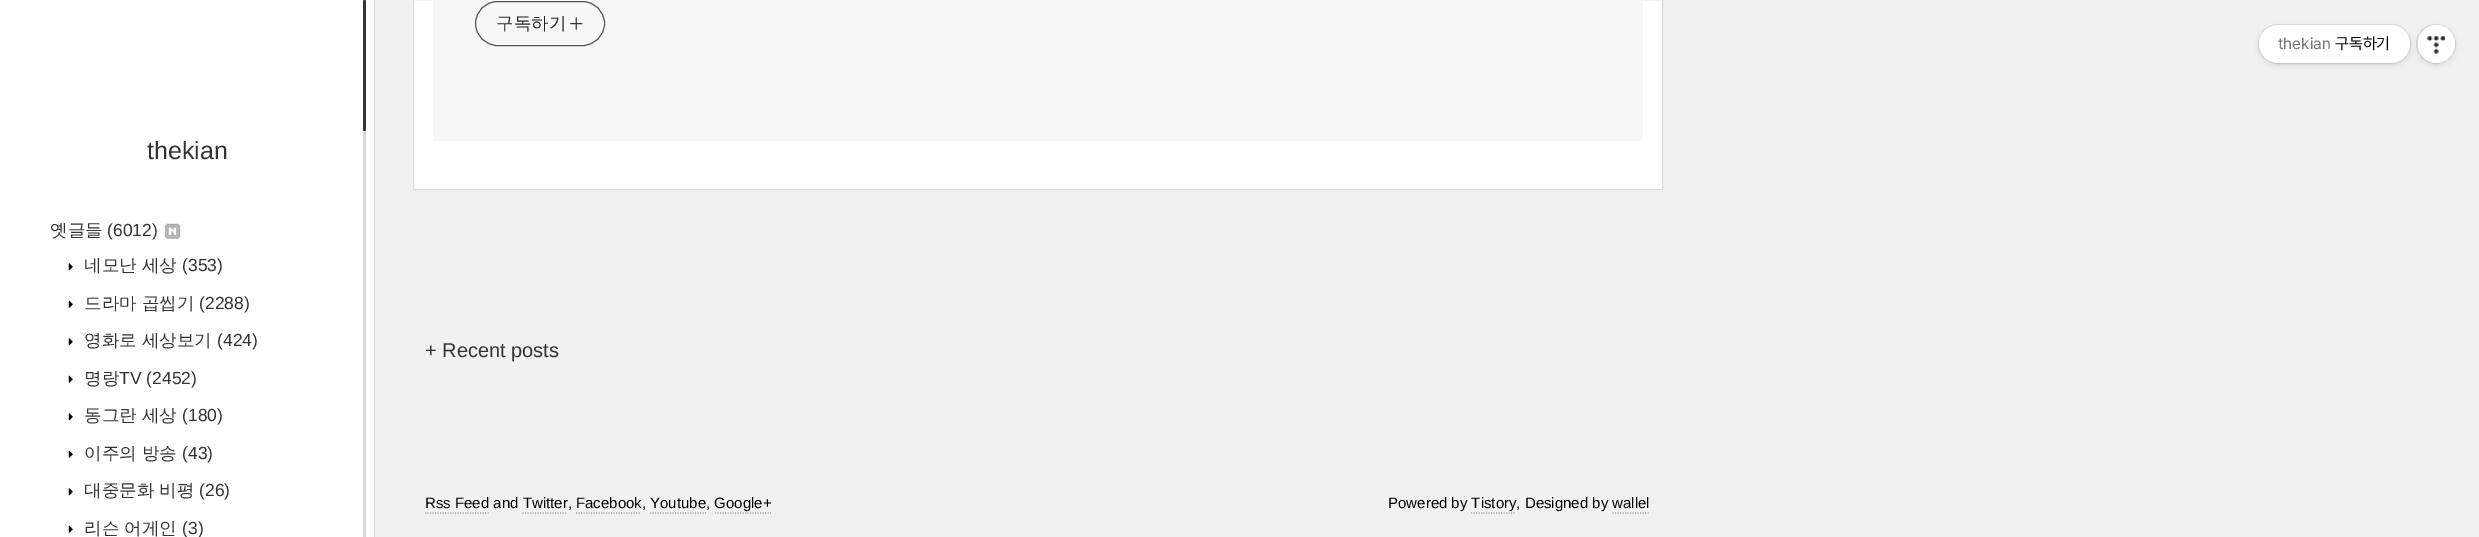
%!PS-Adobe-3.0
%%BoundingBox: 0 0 2479 537
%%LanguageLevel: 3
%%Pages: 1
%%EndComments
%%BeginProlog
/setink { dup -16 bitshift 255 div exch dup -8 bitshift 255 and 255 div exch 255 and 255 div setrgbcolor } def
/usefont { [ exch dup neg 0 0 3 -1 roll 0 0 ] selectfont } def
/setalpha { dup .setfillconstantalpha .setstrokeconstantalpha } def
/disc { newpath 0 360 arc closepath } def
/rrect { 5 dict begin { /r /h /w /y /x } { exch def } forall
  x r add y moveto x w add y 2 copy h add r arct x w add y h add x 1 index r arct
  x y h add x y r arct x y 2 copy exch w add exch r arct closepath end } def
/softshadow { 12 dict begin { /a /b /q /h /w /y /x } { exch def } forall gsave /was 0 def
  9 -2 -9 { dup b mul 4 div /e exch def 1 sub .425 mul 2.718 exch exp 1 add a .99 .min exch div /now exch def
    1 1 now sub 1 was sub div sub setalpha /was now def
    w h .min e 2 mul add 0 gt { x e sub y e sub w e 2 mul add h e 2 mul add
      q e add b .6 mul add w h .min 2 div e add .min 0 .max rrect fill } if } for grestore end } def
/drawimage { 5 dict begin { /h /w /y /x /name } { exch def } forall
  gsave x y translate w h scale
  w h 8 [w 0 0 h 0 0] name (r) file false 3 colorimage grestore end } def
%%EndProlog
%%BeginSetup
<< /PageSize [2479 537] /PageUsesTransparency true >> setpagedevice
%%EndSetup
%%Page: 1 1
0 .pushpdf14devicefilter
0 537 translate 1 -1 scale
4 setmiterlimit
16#F1F1F1 setink
0 0 2479 537 rectfill
16#FFFFFF setink
0 0 374 537 rectfill
16#DDDDDD setink
374 0 1 537 rectfill
/LiberationSans-Regular 25 usefont
16#333333 setink
147 159 moveto (thekian) show
/WenQuanYiZenHei-Medium 17.5 usefont
50 236 moveto (옛글들) show
/LiberationSans-Regular 17.5 usefont
107 236 moveto (\(6012\)) show
(img1.raw) 164 223 17 16 drawimage
(img2.raw) 68 263 5 8 drawimage
/WenQuanYiZenHei-Medium 17.5 usefont
84 271 moveto (네모난 세상) show
/LiberationSans-Regular 17.5 usefont
182 271 moveto (\(353\)) show
(img3.raw) 68 300 5 8 drawimage
/WenQuanYiZenHei-Medium 17.5 usefont
84 309 moveto (드라마 곱씹기) show
/LiberationSans-Regular 17.5 usefont
199 309 moveto (\(2288\)) show
(img2.raw) 68 338 5 8 drawimage
/WenQuanYiZenHei-Medium 17.5 usefont
84 346 moveto (영화로 세상보기) show
/LiberationSans-Regular 17.5 usefont
217 346 moveto (\(424\)) show
(img3.raw) 68 375 5 8 drawimage
/WenQuanYiZenHei-Medium 17.5 usefont
84 384 moveto (명랑) show
/LiberationSans-Regular 17.5 usefont
119 384 moveto (TV \(2452\)) show
(img2.raw) 68 413 5 8 drawimage
/WenQuanYiZenHei-Medium 17.5 usefont
84 421 moveto (동그란 세상) show
/LiberationSans-Regular 17.5 usefont
182 421 moveto (\(180\)) show
(img3.raw) 68 450 5 8 drawimage
/WenQuanYiZenHei-Medium 17.5 usefont
84 459 moveto (이주의 방송) show
/LiberationSans-Regular 17.5 usefont
182 459 moveto (\(43\)) show
(img2.raw) 68 488 5 8 drawimage
/WenQuanYiZenHei-Medium 17.5 usefont
84 496 moveto (대중문화 비평) show
/LiberationSans-Regular 17.5 usefont
199 496 moveto (\(26\)) show
(img3.raw) 68 525 5 8 drawimage
/WenQuanYiZenHei-Medium 17.5 usefont
84 534 moveto (리슨 어게인) show
/LiberationSans-Regular 17.5 usefont
182 534 moveto (\(3\)) show
16#D9D9D9 setink
363 0 3 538 1.5 rrect fill
0.75 setalpha
16#000000 setink
363 0 3 131 1.5 rrect fill
1 setalpha
16#FFFFFF setink
413.5 -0.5 moveto 1662.5 -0.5 lineto 1662.5 189.5 lineto 413.5 189.5 lineto closepath gsave fill grestore
16#DDDDDD setink
stroke
16#F7F7F7 setink
433 0 1210 141 rectfill
16#555555 setink
475.5 1.5 129 44 22 rrect stroke
/WenQuanYiZenHei-Medium 17.5 usefont
16#222222 setink
496 29 moveto (구독하기) show
(img4.raw) 570 17 13 13 drawimage
/LiberationSans-Regular 20 usefont
16#333333 setink
425 357 moveto (+ Recent posts) show
/LiberationSans-Regular 15 usefont
16#000000 setink
425 508 moveto (Rss Feed and Twitter, Facebook, Youtube, Google+) show
16#AAAAAA setink
1.2 setlinewidth
[1.25 1.25] 0 setdash
425 513 moveto 489 513 lineto stroke
522.5 513 moveto 567.5 513 lineto stroke
576 513 moveto 641 513 lineto stroke
650 513 moveto 706 513 lineto stroke
715 513 moveto 771 513 lineto stroke
16#000000 setink
1388 508 moveto (Powered by Tistory, Designed by wallel) show
16#AAAAAA setink
1471 513 moveto 1516 513 lineto stroke
1612.5 513 moveto 1650 513 lineto stroke
16#000000 setink
2418 28 37 37 18.5 3 0.1 softshadow
0.1 setalpha
1 setlinewidth
[] 0 setdash
2436 44 19.5 disc stroke
1 setalpha
16#FFFFFF setink
2418 25 37 38 18.5 rrect fill
16#000000 setink
2259 28 151 37 18.5 3 0.1 softshadow
0.1 setalpha
2258.5 24.5 152 39 19.5 rrect stroke
1 setalpha
16#FFFFFF setink
2259 25 151 38 19 rrect fill
/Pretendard-Regular 16 usefont
16#777777 setink
2278 49 moveto (thekian) show
16#000000 setink
2335 49 moveto (구독하기) show
(img5.raw) 2427 35 18 19 drawimage
.poppdf14devicefilter showpage
%%EOF
